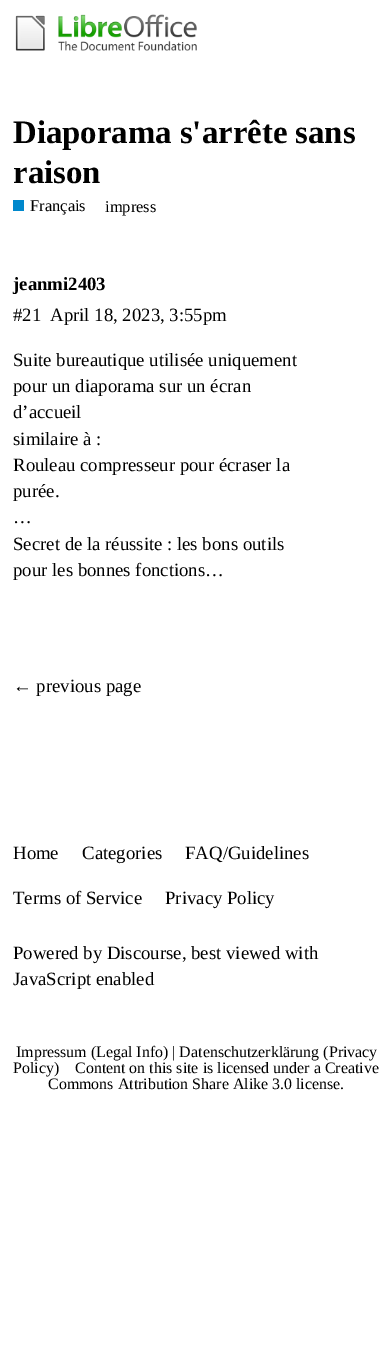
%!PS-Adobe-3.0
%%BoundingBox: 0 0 392 1366
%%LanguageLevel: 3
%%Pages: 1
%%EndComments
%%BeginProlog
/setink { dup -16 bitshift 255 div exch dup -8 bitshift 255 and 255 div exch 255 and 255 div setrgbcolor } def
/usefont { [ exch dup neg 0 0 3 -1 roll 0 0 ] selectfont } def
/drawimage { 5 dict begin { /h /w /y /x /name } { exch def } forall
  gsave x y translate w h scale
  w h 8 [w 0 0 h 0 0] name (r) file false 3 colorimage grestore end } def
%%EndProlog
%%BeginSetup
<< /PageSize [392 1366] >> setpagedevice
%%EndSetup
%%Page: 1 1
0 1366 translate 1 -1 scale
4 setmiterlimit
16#FFFFFF setink
0 0 392 1366 rectfill
(img1.raw) 15 14 182 37 drawimage
/LiberationSerif-Bold 32.8 usefont
16#000000 setink
13 143 moveto (Diaporama s'arrête sans) show
13 183 moveto (raison) show
16#0088CC setink
13 200 11 11 rectfill
/LiberationSerif-Regular 16.5 usefont
16#000000 setink
30 211 moveto (Français) show
105 212 moveto (impress) show
/LiberationSerif-Bold 18.75 usefont
13 290 moveto (jeanmi2403) show
/LiberationSerif-Regular 18.75 usefont
[
    [(#21) 13 321]
    [(April 18, 2023, 3:55pm) 50 321]
    [(Suite bureautique utilisée uniquement) 13 366]
    [(pour un diaporama sur un écran) 13 392]
    [(d’accueil) 13 418]
    [(similaire à :) 13 445]
    [(Rouleau compresseur pour écraser la) 13 471]
    [(purée.) 13 497]
    [(…) 13 523]
    [(Secret de la réussite : les bons outils) 13 550]
    [(pour les bonnes fonctions…) 13 576]
    [(← previous page) 13 692]
    [(Home) 13 859]
    [(Categories) 82 859]
    [(FAQ/Guidelines) 185 859]
    [(Terms of Service) 13 904]
    [(Privacy Policy) 165 904]
    [(Powered by Discourse, best viewed with) 13 959]
    [(JavaScript enabled) 13 985]
] { aload pop moveto show } forall
/LiberationSerif-Regular 15.95 usefont
[
    [(Impressum \(Legal Info\) | Datenschutzerklärung \(Privacy) 16 1057]
    [(Policy\)) 13 1073]
    [(Content on this site is licensed under a Creative) 75 1073]
    [(Commons Attribution Share Alike 3.0 license.) 48 1089]
] { aload pop moveto show } forall
showpage
%%EOF
